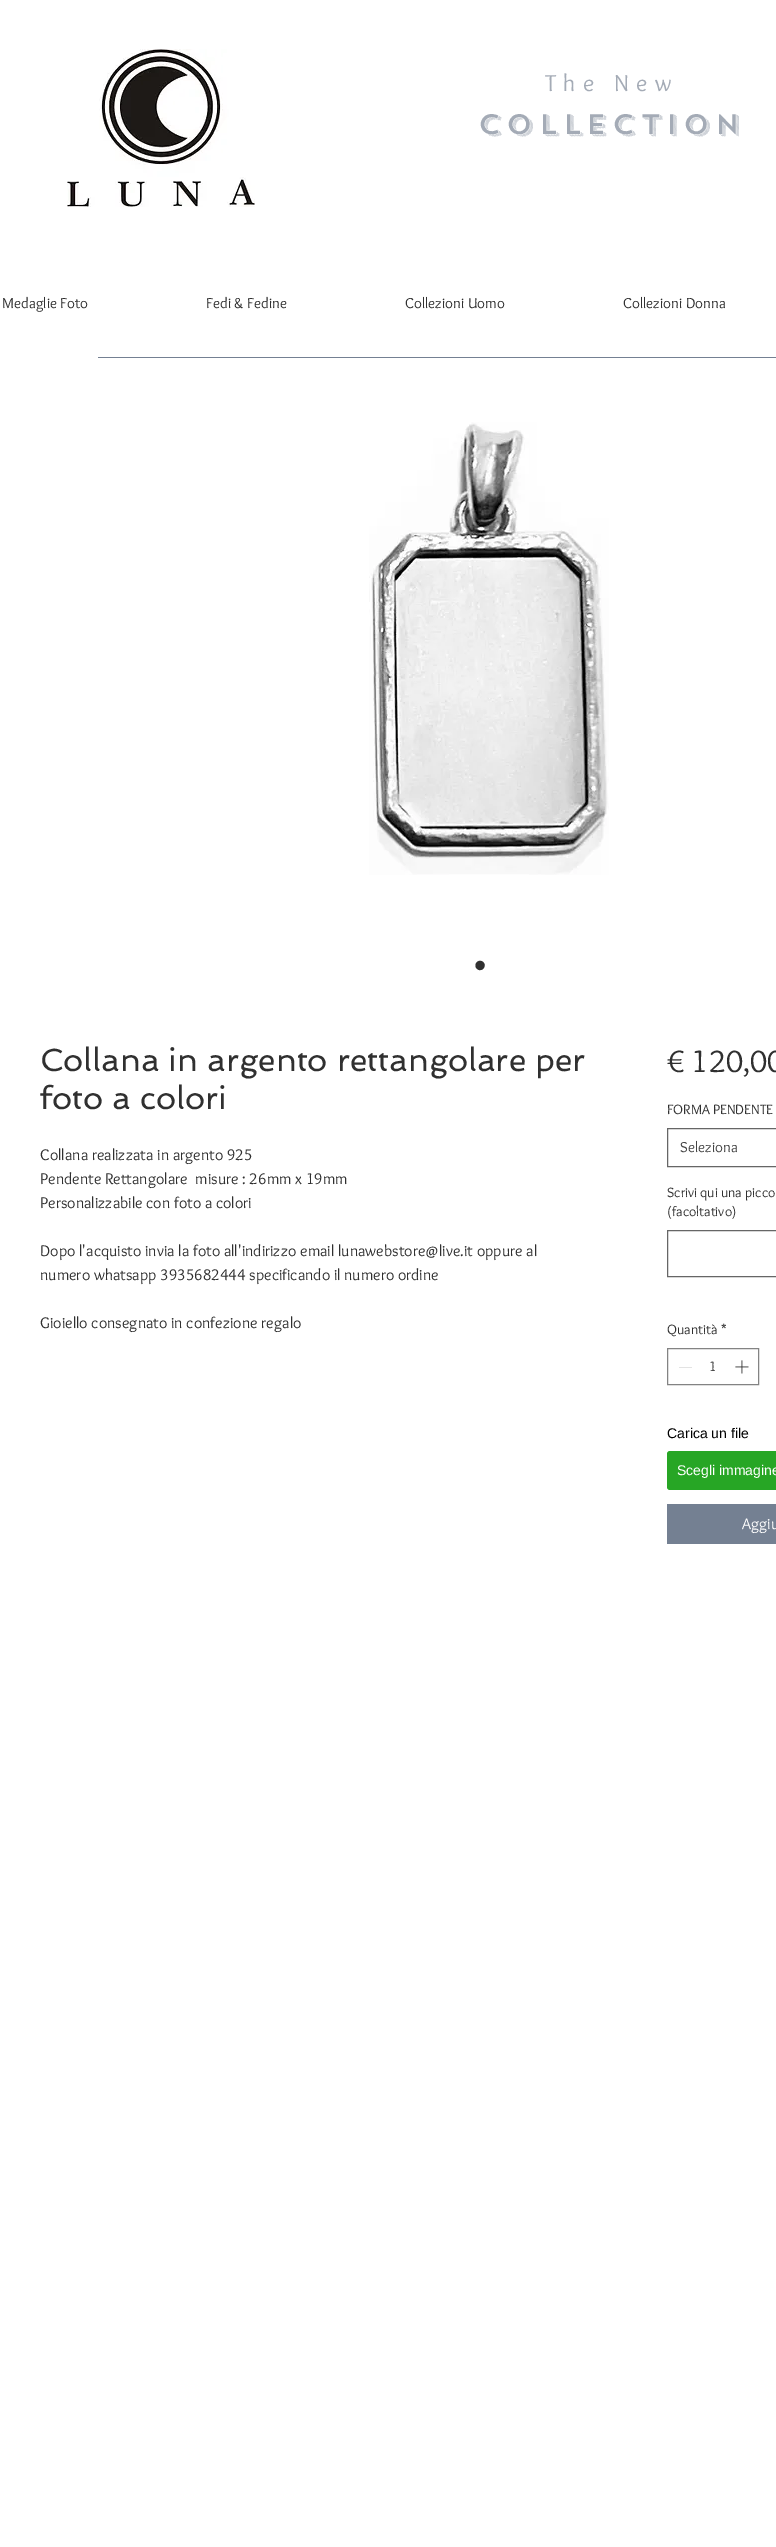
%!PS-Adobe-3.0
%%BoundingBox: 0 0 776 2547
%%LanguageLevel: 3
%%Pages: 1
%%EndComments
%%BeginProlog
/setink { dup -16 bitshift 255 div exch dup -8 bitshift 255 and 255 div exch 255 and 255 div setrgbcolor } def
/usefont { [ exch dup neg 0 0 3 -1 roll 0 0 ] selectfont } def
/rrect { 5 dict begin { /r /h /w /y /x } { exch def } forall
  x r add y moveto x w add y 2 copy h add r arct x w add y h add x 1 index r arct
  x y h add x y r arct x y 2 copy exch w add exch r arct closepath end } def
/drawimage { 5 dict begin { /h /w /y /x /name } { exch def } forall
  gsave x y translate w h scale
  w h 8 [w 0 0 h 0 0] name (r) file false 3 colorimage grestore end } def
%%EndProlog
%%BeginSetup
<< /PageSize [776 2547] >> setpagedevice
%%EndSetup
%%Page: 1 1
0 2547 translate 1 -1 scale
4 setmiterlimit
16#FFFFFF setink
0 0 776 2547 rectfill
(img1.raw) 67 49 188 158 drawimage
/Overlock-Regular 24 usefont
16#A4ABB6 setink
545 91 moveto 7.25 0 (The New) ashow
/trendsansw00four-Medium 28 usefont
478 134 moveto 5.5 0 (COLLECTION) ashow
/Overlock-Regular 15 usefont
16#303030 setink
[
    [(Medaglie Foto) 2 308]
    [(Fedi & Fedine) 206 308]
    [(Collezioni Uomo) 405 308]
    [(Collezioni Donna) 623 308]
] { aload pop moveto show } forall
16#748092 setink
98 357 678 1 rectfill
(img2.raw) 369 422 240 453 drawimage
/LiberationSans-Regular 35 usefont
16#303030 setink
474 977 moveto (•) show
/Spinnaker-Regular 32 usefont
40 1071 moveto (Collana in argento rettangolare per) show
40 1109 moveto (foto a colori) show
/Overlock-Regular 16 usefont
[
    [(Collana realizzata in argento 925) 40 1160]
    [(Pendente Rettangolare  misure : 26mm x 19mm) 40 1184]
    [(Personalizzabile con foto a colori) 40 1208]
    [(Dopo l'acquisto invia la foto all'indirizzo email lunawebstore@live.it oppure al) 40 1256]
    [(numero whatsapp 3935682444 specificando il numero ordine) 40 1280]
    [(Gioiello consegnato in confezione regalo) 40 1328]
] { aload pop moveto show } forall
/Overlock-Regular 32 usefont
667 1072 moveto (€ 120,00) show
/Overlock-Regular 14 usefont
667 1114 moveto (FORMA PENDENTE) show
16#666666 setink
667.5 1128.5 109 38 rectstroke
/Overlock-Regular 15 usefont
16#444444 setink
680 1152 moveto (Seleziona) show
/Overlock-Regular 14 usefont
16#303030 setink
667 1197 moveto (Scrivi qui una picco) show
667 1216 moveto (\(facoltativo\)) show
16#666666 setink
667.5 1230.5 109 46 rectstroke
16#303030 setink
667 1334 moveto (Quantità) show
721 1334 moveto (*) show
16#838383 setink
667.5 1348.5 91 36 rectstroke
16#E3E3E3 setink
679 1367 13 1 rectfill
16#303030 setink
709 1371 moveto (1) show
(img3.raw) 735 1360 14 14 drawimage
/LiberationSans-Regular 14 usefont
16#000000 setink
667 1438 moveto (Carica un file) show
16#27A625 setink
667 1451 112 39 3 rrect fill
16#FFFFFF setink
677 1475 moveto (Scegli immagine) show
16#748092 setink
667 1504 109 40 rectfill
/Overlock-Regular 16 usefont
16#FFFFFF setink
742 1529 moveto (Aggiu) show
showpage
%%EOF
